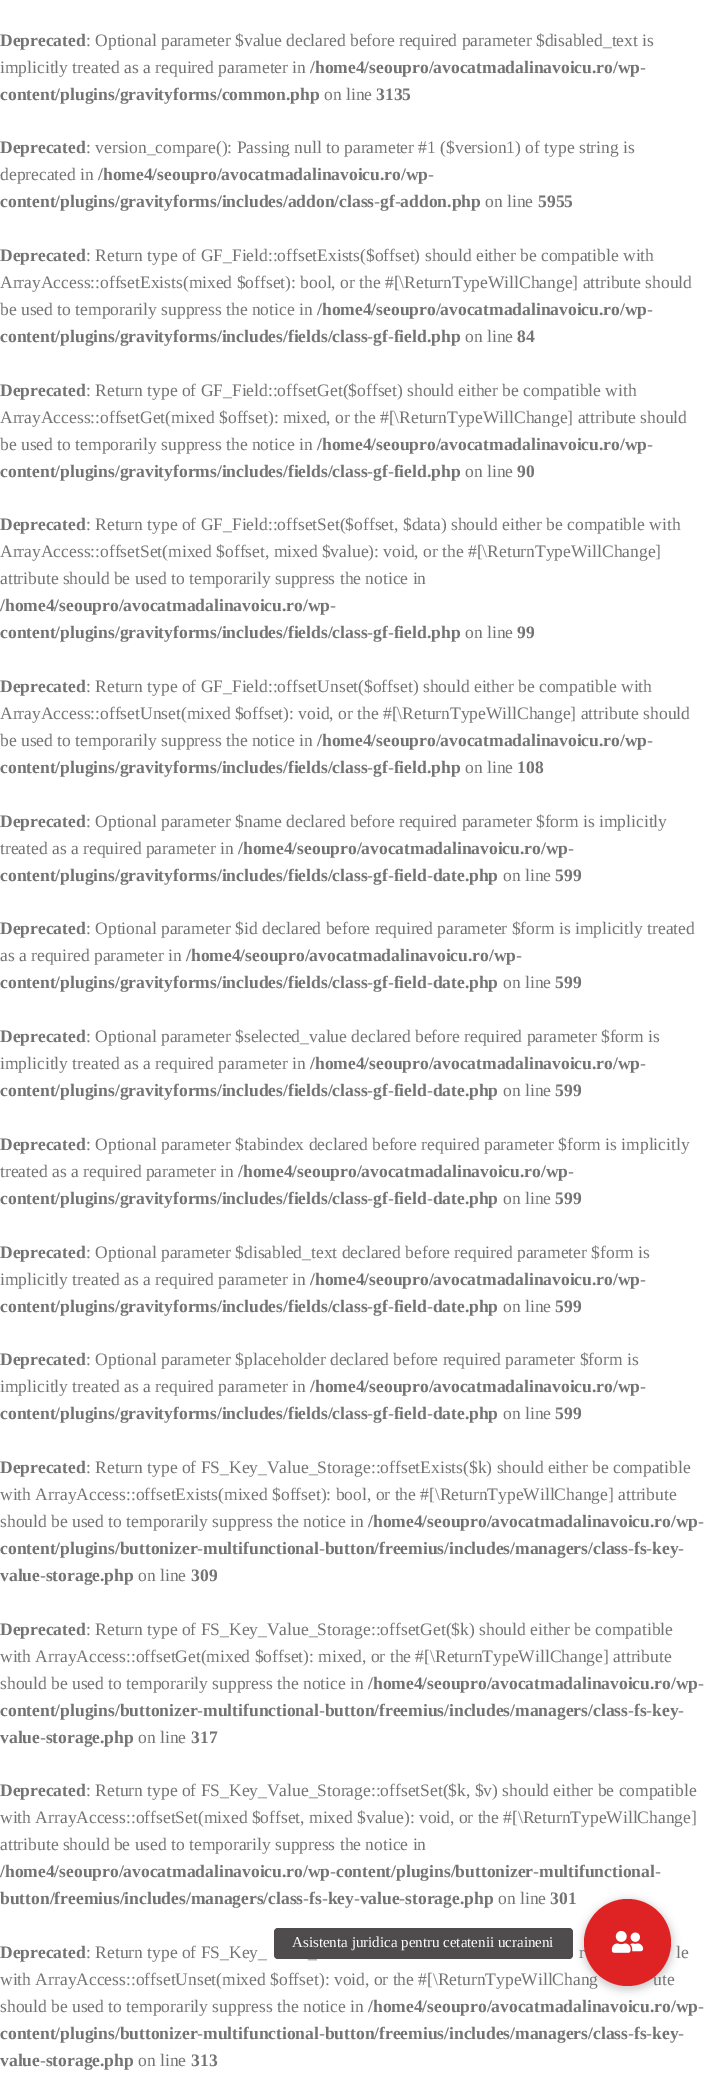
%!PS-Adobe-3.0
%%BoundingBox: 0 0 706 2091
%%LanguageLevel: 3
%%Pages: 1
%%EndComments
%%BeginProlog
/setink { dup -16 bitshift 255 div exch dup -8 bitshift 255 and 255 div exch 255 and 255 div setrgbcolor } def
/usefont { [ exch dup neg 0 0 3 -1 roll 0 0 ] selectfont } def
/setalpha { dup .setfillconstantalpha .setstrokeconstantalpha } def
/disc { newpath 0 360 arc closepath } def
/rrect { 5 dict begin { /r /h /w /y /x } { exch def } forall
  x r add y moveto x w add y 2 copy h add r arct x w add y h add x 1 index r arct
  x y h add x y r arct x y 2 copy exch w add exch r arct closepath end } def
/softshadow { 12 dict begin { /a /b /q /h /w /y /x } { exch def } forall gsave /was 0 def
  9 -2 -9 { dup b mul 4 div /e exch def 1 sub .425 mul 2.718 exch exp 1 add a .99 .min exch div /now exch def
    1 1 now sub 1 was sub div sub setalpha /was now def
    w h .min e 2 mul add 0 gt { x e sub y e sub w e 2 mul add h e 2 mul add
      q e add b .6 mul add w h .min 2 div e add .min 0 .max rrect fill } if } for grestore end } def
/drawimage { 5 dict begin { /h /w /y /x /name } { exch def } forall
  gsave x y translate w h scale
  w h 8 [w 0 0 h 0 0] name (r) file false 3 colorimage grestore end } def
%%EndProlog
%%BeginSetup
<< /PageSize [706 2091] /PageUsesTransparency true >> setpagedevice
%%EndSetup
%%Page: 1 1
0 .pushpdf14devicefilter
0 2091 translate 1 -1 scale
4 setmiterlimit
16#FFFFFF setink
0 0 706 2091 rectfill
/LiberationSerif-Bold 17.5 usefont
16#747474 setink
0 46 moveto (Deprecated) show
/LiberationSerif-Regular 17.5 usefont
86 46 moveto (: Optional parameter $value declared before required parameter $disabled_text is) show
0 73 moveto (implicitly treated as a required parameter in) show
/LiberationSerif-Bold 17.5 usefont
310 73 moveto (/home4/seoupro/avocatmadalinavoicu.ro/wp-) show
0 100 moveto (content/plugins/gravityforms/common.php) show
/LiberationSerif-Regular 17.5 usefont
324 100 moveto (on line) show
/LiberationSerif-Bold 17.5 usefont
376 100 moveto (3135) show
0 153 moveto (Deprecated) show
/LiberationSerif-Regular 17.5 usefont
86 153 moveto (: version_compare\(\): Passing null to parameter #1 \($version1\) of type string is) show
0 180 moveto (deprecated in) show
/LiberationSerif-Bold 17.5 usefont
98 180 moveto (/home4/seoupro/avocatmadalinavoicu.ro/wp-) show
0 207 moveto (content/plugins/gravityforms/includes/addon/class-gf-addon.php) show
/LiberationSerif-Regular 17.5 usefont
485 207 moveto (on line) show
/LiberationSerif-Bold 17.5 usefont
538 207 moveto (5955) show
0 261 moveto (Deprecated) show
/LiberationSerif-Regular 17.5 usefont
[
    [(: Return type of GF_Field::offsetExists\($offset\) should either be compatible with) 86 261]
    [(ArrayAccess::offsetExists\(mixed $offset\): bool, or the #[\\ReturnTypeWillChange] attribute should) 0 288]
    [(be used to temporarily suppress the notice in) 0 315]
] { aload pop moveto show } forall
/LiberationSerif-Bold 17.5 usefont
317 315 moveto (/home4/seoupro/avocatmadalinavoicu.ro/wp-) show
0 342 moveto (content/plugins/gravityforms/includes/fields/class-gf-field.php) show
/LiberationSerif-Regular 17.5 usefont
465 342 moveto (on line) show
/LiberationSerif-Bold 17.5 usefont
517 342 moveto (84) show
0 396 moveto (Deprecated) show
/LiberationSerif-Regular 17.5 usefont
[
    [(: Return type of GF_Field::offsetGet\($offset\) should either be compatible with) 86 396]
    [(ArrayAccess::offsetGet\(mixed $offset\): mixed, or the #[\\ReturnTypeWillChange] attribute should) 0 423]
    [(be used to temporarily suppress the notice in) 0 450]
] { aload pop moveto show } forall
/LiberationSerif-Bold 17.5 usefont
317 450 moveto (/home4/seoupro/avocatmadalinavoicu.ro/wp-) show
0 477 moveto (content/plugins/gravityforms/includes/fields/class-gf-field.php) show
/LiberationSerif-Regular 17.5 usefont
465 477 moveto (on line) show
/LiberationSerif-Bold 17.5 usefont
517 477 moveto (90) show
0 530 moveto (Deprecated) show
/LiberationSerif-Regular 17.5 usefont
[
    [(: Return type of GF_Field::offsetSet\($offset, $data\) should either be compatible with) 86 530]
    [(ArrayAccess::offsetSet\(mixed $offset, mixed $value\): void, or the #[\\ReturnTypeWillChange]) 0 557]
    [(attribute should be used to temporarily suppress the notice in) 0 584]
] { aload pop moveto show } forall
/LiberationSerif-Bold 17.5 usefont
0 611 moveto (/home4/seoupro/avocatmadalinavoicu.ro/wp-) show
0 638 moveto (content/plugins/gravityforms/includes/fields/class-gf-field.php) show
/LiberationSerif-Regular 17.5 usefont
465 638 moveto (on line) show
/LiberationSerif-Bold 17.5 usefont
517 638 moveto (99) show
0 692 moveto (Deprecated) show
/LiberationSerif-Regular 17.5 usefont
[
    [(: Return type of GF_Field::offsetUnset\($offset\) should either be compatible with) 86 692]
    [(ArrayAccess::offsetUnset\(mixed $offset\): void, or the #[\\ReturnTypeWillChange] attribute should) 0 719]
    [(be used to temporarily suppress the notice in) 0 746]
] { aload pop moveto show } forall
/LiberationSerif-Bold 17.5 usefont
317 746 moveto (/home4/seoupro/avocatmadalinavoicu.ro/wp-) show
0 773 moveto (content/plugins/gravityforms/includes/fields/class-gf-field.php) show
/LiberationSerif-Regular 17.5 usefont
465 773 moveto (on line) show
/LiberationSerif-Bold 17.5 usefont
517 773 moveto (108) show
0 827 moveto (Deprecated) show
/LiberationSerif-Regular 17.5 usefont
86 827 moveto (: Optional parameter $name declared before required parameter $form is implicitly) show
0 854 moveto (treated as a required parameter in) show
/LiberationSerif-Bold 17.5 usefont
238 854 moveto (/home4/seoupro/avocatmadalinavoicu.ro/wp-) show
0 881 moveto (content/plugins/gravityforms/includes/fields/class-gf-field-date.php) show
/LiberationSerif-Regular 17.5 usefont
503 881 moveto (on line) show
/LiberationSerif-Bold 17.5 usefont
555 881 moveto (599) show
0 934 moveto (Deprecated) show
/LiberationSerif-Regular 17.5 usefont
86 934 moveto (: Optional parameter $id declared before required parameter $form is implicitly treated) show
0 961 moveto (as a required parameter in) show
/LiberationSerif-Bold 17.5 usefont
186 961 moveto (/home4/seoupro/avocatmadalinavoicu.ro/wp-) show
0 988 moveto (content/plugins/gravityforms/includes/fields/class-gf-field-date.php) show
/LiberationSerif-Regular 17.5 usefont
503 988 moveto (on line) show
/LiberationSerif-Bold 17.5 usefont
555 988 moveto (599) show
0 1042 moveto (Deprecated) show
/LiberationSerif-Regular 17.5 usefont
86 1042 moveto (: Optional parameter $selected_value declared before required parameter $form is) show
0 1069 moveto (implicitly treated as a required parameter in) show
/LiberationSerif-Bold 17.5 usefont
310 1069 moveto (/home4/seoupro/avocatmadalinavoicu.ro/wp-) show
0 1096 moveto (content/plugins/gravityforms/includes/fields/class-gf-field-date.php) show
/LiberationSerif-Regular 17.5 usefont
503 1096 moveto (on line) show
/LiberationSerif-Bold 17.5 usefont
555 1096 moveto (599) show
0 1150 moveto (Deprecated) show
/LiberationSerif-Regular 17.5 usefont
86 1150 moveto (: Optional parameter $tabindex declared before required parameter $form is implicitly) show
0 1177 moveto (treated as a required parameter in) show
/LiberationSerif-Bold 17.5 usefont
238 1177 moveto (/home4/seoupro/avocatmadalinavoicu.ro/wp-) show
0 1204 moveto (content/plugins/gravityforms/includes/fields/class-gf-field-date.php) show
/LiberationSerif-Regular 17.5 usefont
503 1204 moveto (on line) show
/LiberationSerif-Bold 17.5 usefont
555 1204 moveto (599) show
0 1258 moveto (Deprecated) show
/LiberationSerif-Regular 17.5 usefont
86 1258 moveto (: Optional parameter $disabled_text declared before required parameter $form is) show
0 1285 moveto (implicitly treated as a required parameter in) show
/LiberationSerif-Bold 17.5 usefont
310 1285 moveto (/home4/seoupro/avocatmadalinavoicu.ro/wp-) show
0 1312 moveto (content/plugins/gravityforms/includes/fields/class-gf-field-date.php) show
/LiberationSerif-Regular 17.5 usefont
503 1312 moveto (on line) show
/LiberationSerif-Bold 17.5 usefont
555 1312 moveto (599) show
0 1365 moveto (Deprecated) show
/LiberationSerif-Regular 17.5 usefont
86 1365 moveto (: Optional parameter $placeholder declared before required parameter $form is) show
0 1392 moveto (implicitly treated as a required parameter in) show
/LiberationSerif-Bold 17.5 usefont
310 1392 moveto (/home4/seoupro/avocatmadalinavoicu.ro/wp-) show
0 1419 moveto (content/plugins/gravityforms/includes/fields/class-gf-field-date.php) show
/LiberationSerif-Regular 17.5 usefont
503 1419 moveto (on line) show
/LiberationSerif-Bold 17.5 usefont
555 1419 moveto (599) show
0 1473 moveto (Deprecated) show
/LiberationSerif-Regular 17.5 usefont
[
    [(: Return type of FS_Key_Value_Storage::offsetExists\($k\) should either be compatible) 86 1473]
    [(with ArrayAccess::offsetExists\(mixed $offset\): bool, or the #[\\ReturnTypeWillChange] attribute) 0 1500]
    [(should be used to temporarily suppress the notice in) 0 1527]
] { aload pop moveto show } forall
/LiberationSerif-Bold 17.5 usefont
[
    [(/home4/seoupro/avocatmadalinavoicu.ro/wp-) 368 1527]
    [(content/plugins/buttonizer-multifunctional-button/freemius/includes/managers/class-fs-key-) 0 1554]
    [(value-storage.php) 0 1581]
] { aload pop moveto show } forall
/LiberationSerif-Regular 17.5 usefont
138 1581 moveto (on line) show
/LiberationSerif-Bold 17.5 usefont
191 1581 moveto (309) show
0 1635 moveto (Deprecated) show
/LiberationSerif-Regular 17.5 usefont
[
    [(: Return type of FS_Key_Value_Storage::offsetGet\($k\) should either be compatible) 86 1635]
    [(with ArrayAccess::offsetGet\(mixed $offset\): mixed, or the #[\\ReturnTypeWillChange] attribute) 0 1662]
    [(should be used to temporarily suppress the notice in) 0 1689]
] { aload pop moveto show } forall
/LiberationSerif-Bold 17.5 usefont
[
    [(/home4/seoupro/avocatmadalinavoicu.ro/wp-) 368 1689]
    [(content/plugins/buttonizer-multifunctional-button/freemius/includes/managers/class-fs-key-) 0 1716]
    [(value-storage.php) 0 1743]
] { aload pop moveto show } forall
/LiberationSerif-Regular 17.5 usefont
138 1743 moveto (on line) show
/LiberationSerif-Bold 17.5 usefont
191 1743 moveto (317) show
0 1796 moveto (Deprecated) show
/LiberationSerif-Regular 17.5 usefont
[
    [(: Return type of FS_Key_Value_Storage::offsetSet\($k, $v\) should either be compatible) 86 1796]
    [(with ArrayAccess::offsetSet\(mixed $offset, mixed $value\): void, or the #[\\ReturnTypeWillChange]) 0 1823]
    [(attribute should be used to temporarily suppress the notice in) 0 1850]
] { aload pop moveto show } forall
/LiberationSerif-Bold 17.5 usefont
0 1877 moveto (/home4/seoupro/avocatmadalinavoicu.ro/wp-content/plugins/buttonizer-multifunctional-) show
0 1904 moveto (button/freemius/includes/managers/class-fs-key-value-storage.php) show
/LiberationSerif-Regular 17.5 usefont
498 1904 moveto (on line) show
/LiberationSerif-Bold 17.5 usefont
550 1904 moveto (301) show
16#000000 setink
583 1900 90 90 45 4 0.2 softshadow
/LiberationSerif-Regular 17.5 usefont
16#747474 setink
[
    [(r) 579 1958]
    [(with ArrayAccess::offsetUnset\(mixed $offset\): void, or the #[\\ReturnTypeWillChang) 0 1985]
    [(ute) 653 1985]
] { aload pop moveto show } forall
16#DF2224 setink
627.5 1942.5 43.5 disc fill
16#4E4C4C setink
274 1928 299 31 4 rrect fill
/LiberationSerif-Regular 15 usefont
16#FFFFFF setink
292 1947 moveto (Asistenta juridica pentru cetatenii ucraineni) show
(img1.raw) 611 1930 33 23 drawimage
/LiberationSerif-Bold 17.5 usefont
16#747474 setink
0 1958 moveto (Deprecated) show
/LiberationSerif-Regular 17.5 usefont
[
    [(: Return type of FS_Key_) 86 1958]
    [(le) 676 1958]
    [(_) 308 1958]
    [(should be used to temporarily suppress the notice in) 0 2012]
] { aload pop moveto show } forall
/LiberationSerif-Bold 17.5 usefont
[
    [(/home4/seoupro/avocatmadalinavoicu.ro/wp-) 368 2012]
    [(content/plugins/buttonizer-multifunctional-button/freemius/includes/managers/class-fs-key-) 0 2039]
    [(value-storage.php) 0 2066]
] { aload pop moveto show } forall
/LiberationSerif-Regular 17.5 usefont
138 2066 moveto (on line) show
/LiberationSerif-Bold 17.5 usefont
191 2066 moveto (313) show
.poppdf14devicefilter showpage
%%EOF
